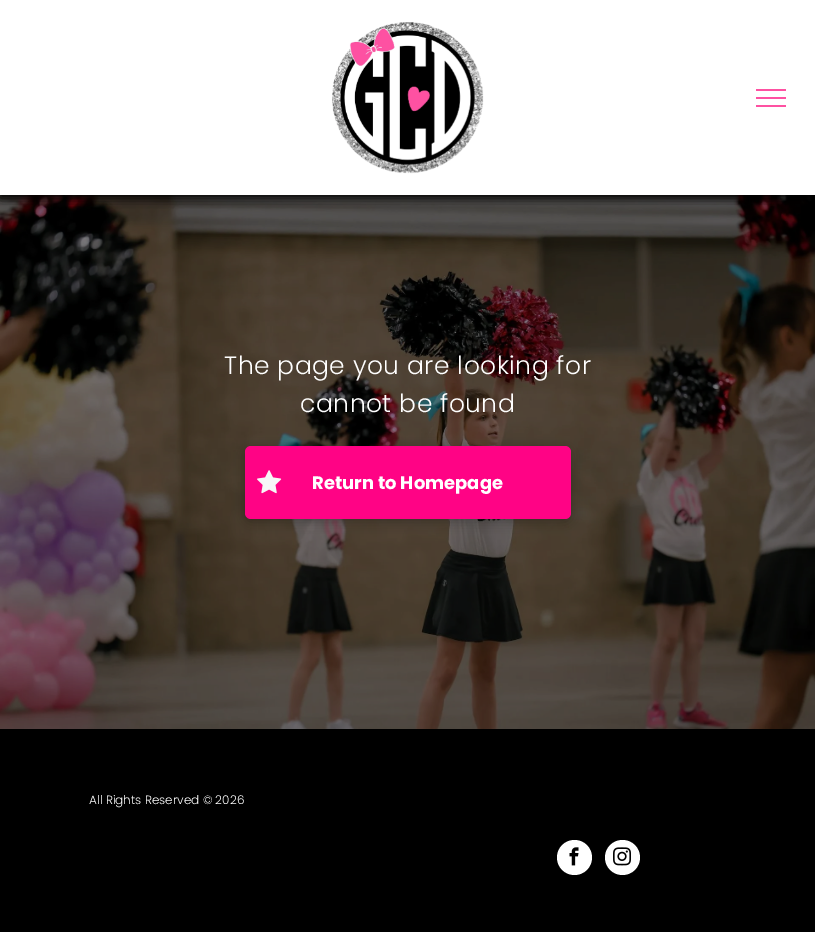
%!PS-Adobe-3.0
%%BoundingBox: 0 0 815 932
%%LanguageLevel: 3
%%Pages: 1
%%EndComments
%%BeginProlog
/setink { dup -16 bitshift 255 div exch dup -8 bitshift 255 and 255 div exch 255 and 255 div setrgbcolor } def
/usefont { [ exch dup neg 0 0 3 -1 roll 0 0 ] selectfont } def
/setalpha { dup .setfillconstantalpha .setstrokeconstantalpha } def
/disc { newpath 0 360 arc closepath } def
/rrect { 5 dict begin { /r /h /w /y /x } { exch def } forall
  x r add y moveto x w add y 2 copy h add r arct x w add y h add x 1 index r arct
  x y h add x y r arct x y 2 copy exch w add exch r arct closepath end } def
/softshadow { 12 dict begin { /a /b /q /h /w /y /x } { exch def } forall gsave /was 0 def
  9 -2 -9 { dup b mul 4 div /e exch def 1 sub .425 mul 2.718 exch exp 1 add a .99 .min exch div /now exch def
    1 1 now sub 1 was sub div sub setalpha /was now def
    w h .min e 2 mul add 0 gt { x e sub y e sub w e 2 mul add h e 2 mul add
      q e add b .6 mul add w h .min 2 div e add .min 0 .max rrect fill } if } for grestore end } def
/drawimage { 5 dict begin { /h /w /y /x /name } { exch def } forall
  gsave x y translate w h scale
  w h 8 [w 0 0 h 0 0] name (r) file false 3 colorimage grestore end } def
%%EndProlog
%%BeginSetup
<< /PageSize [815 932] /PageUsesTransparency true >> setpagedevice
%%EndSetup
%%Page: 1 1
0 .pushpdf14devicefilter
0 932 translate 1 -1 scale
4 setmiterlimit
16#FFFFFF setink
0 0 815 932 rectfill
(img2.raw) 0 195 815 534 drawimage
gsave
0 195 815 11 rectclip
16#000000 setink
0 3 815 195 0 5.5 0.25 softshadow
grestore
gsave
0 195 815 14 rectclip
16#000000 setink
0 3 815 195 0 5.5 1 softshadow
grestore
(img1.raw) 332 22 152 152 drawimage
[
    [756 89 30 2 16#FE51A2]
    [756 97 30 2 16#FE51A2]
    [756 105 30 2 16#FE51A2]
] { aload pop setink rectfill } forall
/Poppins-Light 25 usefont
16#FFFFFF setink
224 374 moveto 0.5 0 (The page you are looking for) ashow
300 412 moveto 0.5 0 (cannot be found) ashow
16#000000 setink
245 449 326 73 6 5.5 0.25 softshadow
16#FF0385 setink
245 446 326 73 6 rrect fill
(img3.raw) 257 470 25 24 drawimage
/Poppins-Bold 18 usefont
16#FFFFFF setink
312 489 moveto (Return to Homepage) show
16#000000 setink
0 729 815 203 rectfill
/Poppins-Light 12 usefont
16#FFFFFF setink
89 804 moveto (All Rights Reserved © 2026) show
574.5 857.5 17.5 disc fill
(img4.raw) 569 847 10 19 drawimage
622.5 857.5 17.5 disc fill
(img5.raw) 613 847 18 19 drawimage
.poppdf14devicefilter showpage
%%EOF
